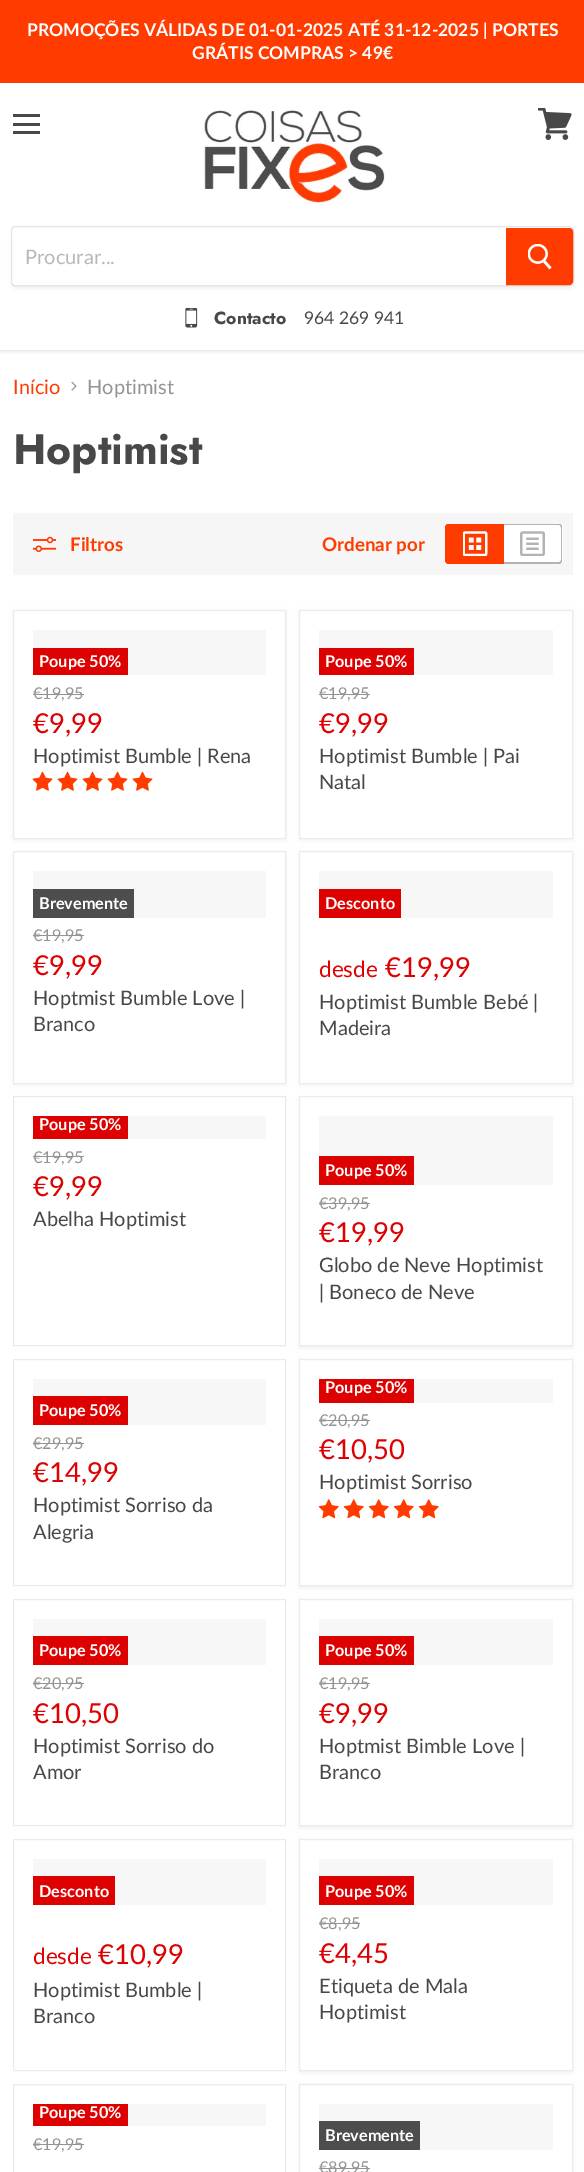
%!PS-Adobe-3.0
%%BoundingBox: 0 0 584 2172
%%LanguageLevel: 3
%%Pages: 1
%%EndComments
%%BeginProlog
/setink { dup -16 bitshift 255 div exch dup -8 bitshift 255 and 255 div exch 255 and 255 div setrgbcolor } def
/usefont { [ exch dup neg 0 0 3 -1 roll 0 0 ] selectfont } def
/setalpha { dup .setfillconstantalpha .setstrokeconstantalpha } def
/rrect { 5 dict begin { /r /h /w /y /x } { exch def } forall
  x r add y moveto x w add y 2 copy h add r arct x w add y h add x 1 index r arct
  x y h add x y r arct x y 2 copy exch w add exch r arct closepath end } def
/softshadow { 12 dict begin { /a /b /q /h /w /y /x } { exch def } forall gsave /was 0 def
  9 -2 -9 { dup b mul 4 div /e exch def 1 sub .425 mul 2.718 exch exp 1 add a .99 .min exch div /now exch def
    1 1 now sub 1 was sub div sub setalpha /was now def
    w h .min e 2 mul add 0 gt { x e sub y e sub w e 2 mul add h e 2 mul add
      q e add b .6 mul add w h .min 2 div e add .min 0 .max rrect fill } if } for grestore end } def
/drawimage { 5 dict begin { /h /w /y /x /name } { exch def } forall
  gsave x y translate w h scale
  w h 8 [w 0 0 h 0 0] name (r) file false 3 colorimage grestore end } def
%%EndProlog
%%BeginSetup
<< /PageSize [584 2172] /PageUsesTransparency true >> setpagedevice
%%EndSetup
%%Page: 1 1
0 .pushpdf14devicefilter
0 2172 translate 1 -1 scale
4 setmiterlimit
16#FFFFFF setink
0 0 584 2172 rectfill
gsave
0 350 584 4 rectclip
16#7F7F7F setink
0 1 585 350 0 2.5 0.25 softshadow
grestore
16#FF3B00 setink
0 0 584 83 rectfill
/Lato-Bold 17.5 usefont
16#FFFFFF setink
27 36 moveto (PROMOÇÕES VÁLIDAS DE 01-01-2025 ATÉ 31-12-2025 | PORTES) show
192 59 moveto (GRÁTIS COMPRAS > 49€) show
[
    [13 114 27 3 16#484848]
    [13 123 27 3 16#484848]
    [13 131 27 3 16#484848]
] { aload pop setink rectfill } forall
(img1.raw) 538 108 34 32 drawimage
(img2.raw) 203 110 182 95 drawimage
gsave
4 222 moveto 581 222 lineto 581 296 lineto 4 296 lineto closepath 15 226 moveto 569 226 lineto 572 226 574 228 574 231 curveto 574 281 lineto 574 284 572 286 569 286 curveto 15 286 lineto 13 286 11 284 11 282 curveto 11 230 lineto 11 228 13 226 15 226 curveto closepath eoclip newpath
16#7F7F7F setink
11 229 563 60 5 2 0.11 softshadow
grestore
0.2 setalpha
16#7F7F7F setink
15 226.5 moveto 569 226.5 lineto 571.5 226.5 573.5 228.5 573.5 231 curveto 573.5 281 lineto 573.5 283.5 571.5 285.5 569 285.5 curveto 15 285.5 lineto 13 285.5 11.5 284 11.5 282 curveto 11.5 230 lineto 11.5 228 13 226.5 15 226.5 curveto closepath stroke
/Lato-Regular 20 usefont
1 setalpha
16#B8B8B8 setink
25 264 moveto (Procurar...) show
16#FF3B00 setink
506.5 228.5 moveto 569 228.5 lineto 571 228.5 572.5 230 572.5 232 curveto 572.5 281 lineto 572.5 283 571 284.5 569 284.5 curveto 506.5 284.5 lineto closepath gsave fill grestore
stroke
(img3.raw) 528 244 24 26 drawimage
(img4.raw) 185 308 13 20 drawimage
/Jost-Bold 17.5 usefont
16#484848 setink
214 324 moveto (Contacto) show
/Lato-Regular 17.5 usefont
304 324 moveto (964 269 941) show
/Lato-Regular 20 usefont
16#FF3B00 setink
13 394 moveto (Início) show
(img5.raw) 71 381 6 10 drawimage
16#949494 setink
87 394 moveto (Hoptimist) show
/Jost-Bold 42.5 usefont
16#484848 setink
13 464 moveto (Hoptimist) show
16#F6F6F6 setink
13 513 560 62 rectfill
(img6.raw) 33 536 23 16 drawimage
/Lato-Bold 18.75 usefont
16#FF3B00 setink
70 551 moveto (Filtros) show
322 551 moveto (Ordenar por) show
449 524 moveto 504 524 lineto 504 564 lineto 449 564 lineto 447 564 445 562 445 560 curveto 445 528 lineto 445 526 447 524 449 524 curveto closepath fill
449 524 moveto 504 524 lineto 504 564 lineto 449 564 lineto 447 564 445 562 445 560 curveto 445 528 lineto 445 525 447 524 449 524 curveto closepath 449 525 moveto 504 525 lineto 504 562 lineto 449 562 lineto 447 562 446 561 446 560 curveto 446 528 lineto 446 526 447 525 449 525 curveto closepath eofill
(img7.raw) 463 531 25 25 drawimage
16#FFFFFF setink
504 524 moveto 559 524 lineto 561 524 563 526 563 528 curveto 563 560 lineto 563 562 561 564 559 564 curveto 504 564 lineto closepath fill
16#B3B3B3 setink
504 524 moveto 559 524 lineto 561 524 562 525 562 528 curveto 562 560 lineto 562 562 561 564 559 564 curveto 504 564 lineto closepath 504 525 moveto 559 525 lineto 560 525 561 526 561 528 curveto 561 560 lineto 561 561 560 562 559 562 curveto 504 562 lineto closepath eofill
(img8.raw) 520 531 25 25 drawimage
16#7F7F7F setink
13 611 273 229 0 2.5 0.11 softshadow
16#FFFFFF setink
13.5 610.5 moveto 285.5 610.5 lineto 285.5 838.5 lineto 13.5 838.5 lineto closepath gsave fill grestore
16#EBEBEB setink
stroke
16#F7F7F7 setink
33 630 233 45 rectfill
16#DE0101 setink
33 648 95 27 rectfill
/Lato-Bold 16.25 usefont
16#FFFFFF setink
39 667 moveto (Poupe 50%) show
/Lato-Regular 16.25 usefont
16#949494 setink
33 699 moveto (€19,95) show
33 694 51 1 rectfill
/Lato-Regular 27.5 usefont
16#DE0101 setink
33 733 moveto (€9,99) show
/Lato-Regular 20 usefont
16#484848 setink
33 763 moveto (Hoptimist Bumble | Rena) show
(img9.raw) 32 771 21 20 drawimage
(img9.raw) 57 771 21 20 drawimage
(img9.raw) 82 771 21 20 drawimage
(img9.raw) 107 771 21 20 drawimage
(img9.raw) 132 771 21 20 drawimage
16#7F7F7F setink
299 611 274 229 0 2.5 0.11 softshadow
16#FFFFFF setink
299.5 610.5 moveto 572.5 610.5 lineto 572.5 838.5 lineto 299.5 838.5 lineto closepath gsave fill grestore
16#EBEBEB setink
stroke
16#F7F7F7 setink
319 630 234 45 rectfill
16#DE0101 setink
319 648 95 27 rectfill
/Lato-Bold 16.25 usefont
16#FFFFFF setink
325 667 moveto (Poupe 50%) show
/Lato-Regular 16.25 usefont
16#949494 setink
319 699 moveto (€19,95) show
319 694 51 1 rectfill
/Lato-Regular 27.5 usefont
16#DE0101 setink
319 733 moveto (€9,99) show
/Lato-Regular 20 usefont
16#484848 setink
319 763 moveto (Hoptimist Bumble | Pai) show
319 789 moveto (Natal) show
16#7F7F7F setink
13 853 273 232 0 2.5 0.11 softshadow
16#FFFFFF setink
13.5 851.5 moveto 285.5 851.5 lineto 285.5 1083.5 lineto 13.5 1083.5 lineto closepath gsave fill grestore
16#EBEBEB setink
stroke
16#F7F7F7 setink
33 871 233 47 rectfill
16#4D4D4D setink
33 889 101 29 rectfill
/Lato-Bold 16.25 usefont
16#FFFFFF setink
39 909 moveto (Brevemente) show
/Lato-Regular 16.25 usefont
16#949494 setink
33 941 moveto (€19,95) show
33 935 51 1 rectfill
/Lato-Regular 27.5 usefont
16#DE0101 setink
33 975 moveto (€9,99) show
/Lato-Regular 20 usefont
16#484848 setink
33 1005 moveto (Hoptmist Bumble Love |) show
33 1031 moveto (Branco) show
16#7F7F7F setink
299 853 274 232 0 2.5 0.11 softshadow
16#FFFFFF setink
299.5 851.5 moveto 572.5 851.5 lineto 572.5 1083.5 lineto 299.5 1083.5 lineto closepath gsave fill grestore
16#EBEBEB setink
stroke
16#F7F7F7 setink
319 871 234 47 rectfill
16#DE0101 setink
319 889 82 29 rectfill
/Lato-Bold 16.25 usefont
16#FFFFFF setink
325 909 moveto (Desconto) show
/Lato-Regular 22.5 usefont
16#DE0101 setink
319 977 moveto (desde) show
/Lato-Regular 27.5 usefont
385 977 moveto (€19,99) show
/Lato-Regular 20 usefont
16#484848 setink
319 1009 moveto (Hoptimist Bumble Bebé |) show
319 1035 moveto (Madeira) show
16#EAEAEA setink
13.5 1096.5 272 249 rectstroke
16#DE0101 setink
33 1116 95 23 rectfill
/Lato-Bold 16.25 usefont
16#FFFFFF setink
39 1130 moveto (Poupe 50%) show
16#F7F7F7 setink
128 1116 138 23 rectfill
/Lato-Regular 16.25 usefont
16#949494 setink
33 1163 moveto (€19,95) show
33 1156 51 1 rectfill
/Lato-Regular 27.5 usefont
16#DE0101 setink
33 1196 moveto (€9,99) show
/Lato-Regular 20 usefont
16#484848 setink
33 1226 moveto (Abelha Hoptimist) show
16#7F7F7F setink
299 1098 274 250 0 2.5 0.11 softshadow
16#FFFFFF setink
299.5 1096.5 moveto 572.5 1096.5 lineto 572.5 1345.5 lineto 299.5 1345.5 lineto closepath gsave fill grestore
16#EBEBEB setink
stroke
16#F7F7F7 setink
319 1116 234 69 rectfill
16#DE0101 setink
319 1156 95 29 rectfill
/Lato-Bold 16.25 usefont
16#FFFFFF setink
325 1176 moveto (Poupe 50%) show
/Lato-Regular 16.25 usefont
16#949494 setink
319 1209 moveto (€39,95) show
319 1203 51 1 rectfill
/Lato-Regular 27.5 usefont
16#DE0101 setink
319 1242 moveto (€19,99) show
/Lato-Regular 20 usefont
16#484848 setink
319 1272 moveto (Globo de Neve Hoptimist) show
319 1299 moveto (| Boneco de Neve) show
16#EBEBEB setink
13.5 1359.5 272 226 rectstroke
16#F7F7F7 setink
33 1379 233 46 rectfill
16#DE0101 setink
33 1396 95 29 rectfill
/Lato-Bold 16.25 usefont
16#FFFFFF setink
39 1416 moveto (Poupe 50%) show
/Lato-Regular 16.25 usefont
16#949494 setink
33 1449 moveto (€29,95) show
33 1443 51 1 rectfill
/Lato-Regular 27.5 usefont
16#DE0101 setink
33 1482 moveto (€14,99) show
/Lato-Regular 20 usefont
16#484848 setink
33 1512 moveto (Hoptimist Sorriso da) show
33 1539 moveto (Alegria) show
16#7F7F7F setink
299 1360 274 228 0 2.5 0.11 softshadow
16#FFFFFF setink
299.5 1359.5 moveto 572.5 1359.5 lineto 572.5 1585.5 lineto 299.5 1585.5 lineto closepath gsave fill grestore
16#EBEBEB setink
stroke
16#DE0101 setink
319 1379 95 24 rectfill
/Lato-Bold 16.25 usefont
16#FFFFFF setink
325 1393 moveto (Poupe 50%) show
16#F7F7F7 setink
414 1379 139 24 rectfill
/Lato-Regular 16.25 usefont
16#949494 setink
319 1426 moveto (€20,95) show
319 1420 51 1 rectfill
/Lato-Regular 27.5 usefont
16#DE0101 setink
319 1459 moveto (€10,50) show
/Lato-Regular 20 usefont
16#484848 setink
319 1489 moveto (Hoptimist Sorriso) show
(img10.raw) 318 1499 21 20 drawimage
(img10.raw) 343 1499 21 20 drawimage
(img10.raw) 368 1499 21 20 drawimage
(img10.raw) 393 1499 21 20 drawimage
(img10.raw) 418 1499 21 20 drawimage
16#EBEBEB setink
13.5 1599.5 272 226 rectstroke
16#F7F7F7 setink
33 1619 233 46 rectfill
16#DE0101 setink
33 1636 95 29 rectfill
/Lato-Bold 16.25 usefont
16#FFFFFF setink
39 1656 moveto (Poupe 50%) show
/Lato-Regular 16.25 usefont
16#949494 setink
33 1689 moveto (€20,95) show
33 1683 51 1 rectfill
/Lato-Regular 27.5 usefont
16#DE0101 setink
33 1723 moveto (€10,50) show
/Lato-Regular 20 usefont
16#484848 setink
33 1753 moveto (Hoptimist Sorriso do) show
33 1779 moveto (Amor) show
16#7F7F7F setink
299 1600 274 228 0 2.5 0.11 softshadow
16#FFFFFF setink
299.5 1599.5 moveto 572.5 1599.5 lineto 572.5 1825.5 lineto 299.5 1825.5 lineto closepath gsave fill grestore
16#EBEBEB setink
stroke
16#F7F7F7 setink
319 1619 234 46 rectfill
16#DE0101 setink
319 1636 95 29 rectfill
/Lato-Bold 16.25 usefont
16#FFFFFF setink
325 1656 moveto (Poupe 50%) show
/Lato-Regular 16.25 usefont
16#949494 setink
319 1689 moveto (€19,95) show
319 1683 51 1 rectfill
/Lato-Regular 27.5 usefont
16#DE0101 setink
319 1723 moveto (€9,99) show
/Lato-Regular 20 usefont
16#484848 setink
319 1753 moveto (Hoptmist Bimble Love |) show
319 1779 moveto (Branco) show
16#EBEBEB setink
13.5 1839.5 272 231 rectstroke
16#F7F7F7 setink
33 1859 233 46 rectfill
16#DE0101 setink
33 1876 82 29 rectfill
/Lato-Bold 16.25 usefont
16#FFFFFF setink
39 1897 moveto (Desconto) show
/Lato-Regular 22.5 usefont
16#DE0101 setink
33 1964 moveto (desde) show
/Lato-Regular 27.5 usefont
98 1964 moveto (€10,99) show
/Lato-Regular 20 usefont
16#484848 setink
33 1997 moveto (Hoptimist Bumble |) show
33 2023 moveto (Branco) show
16#7F7F7F setink
299 1840 274 233 0 2.5 0.11 softshadow
16#FFFFFF setink
299.5 1839.5 moveto 572.5 1839.5 lineto 572.5 2070.5 lineto 299.5 2070.5 lineto closepath gsave fill grestore
16#EBEBEB setink
stroke
16#F7F7F7 setink
319 1859 234 46 rectfill
16#DE0101 setink
319 1876 95 29 rectfill
/Lato-Bold 16.25 usefont
16#FFFFFF setink
325 1897 moveto (Poupe 50%) show
/Lato-Regular 16.25 usefont
16#949494 setink
319 1929 moveto (€8,95) show
319 1923 41 1 rectfill
/Lato-Regular 27.5 usefont
16#DE0101 setink
319 1963 moveto (€4,45) show
/Lato-Regular 20 usefont
16#484848 setink
319 1993 moveto (Etiqueta de Mala) show
319 2019 moveto (Hoptimist) show
16#EBEBEB setink
13.5 2084.5 272 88 rectstroke
16#DE0101 setink
33 2104 95 22 rectfill
/Lato-Bold 16.25 usefont
16#FFFFFF setink
39 2118 moveto (Poupe 50%) show
16#F7F7F7 setink
128 2104 138 22 rectfill
/Lato-Regular 16.25 usefont
16#949494 setink
33 2150 moveto (€19,95) show
33 2144 51 1 rectfill
16#7F7F7F setink
299 2085 274 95 0 2.5 0.11 softshadow
16#FFFFFF setink
299.5 2084.5 moveto 572.5 2084.5 lineto 572.5 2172.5 lineto 299.5 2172.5 lineto closepath gsave fill grestore
16#EBEBEB setink
stroke
16#F7F7F7 setink
319 2104 234 46 rectfill
16#4D4D4D setink
319 2121 101 29 rectfill
/Lato-Bold 16.25 usefont
16#FFFFFF setink
325 2141 moveto (Brevemente) show
/Lato-Regular 16.25 usefont
16#949494 setink
319 2173 moveto (€89,95) show
319 2168 51 1 rectfill
.poppdf14devicefilter showpage
%%EOF
